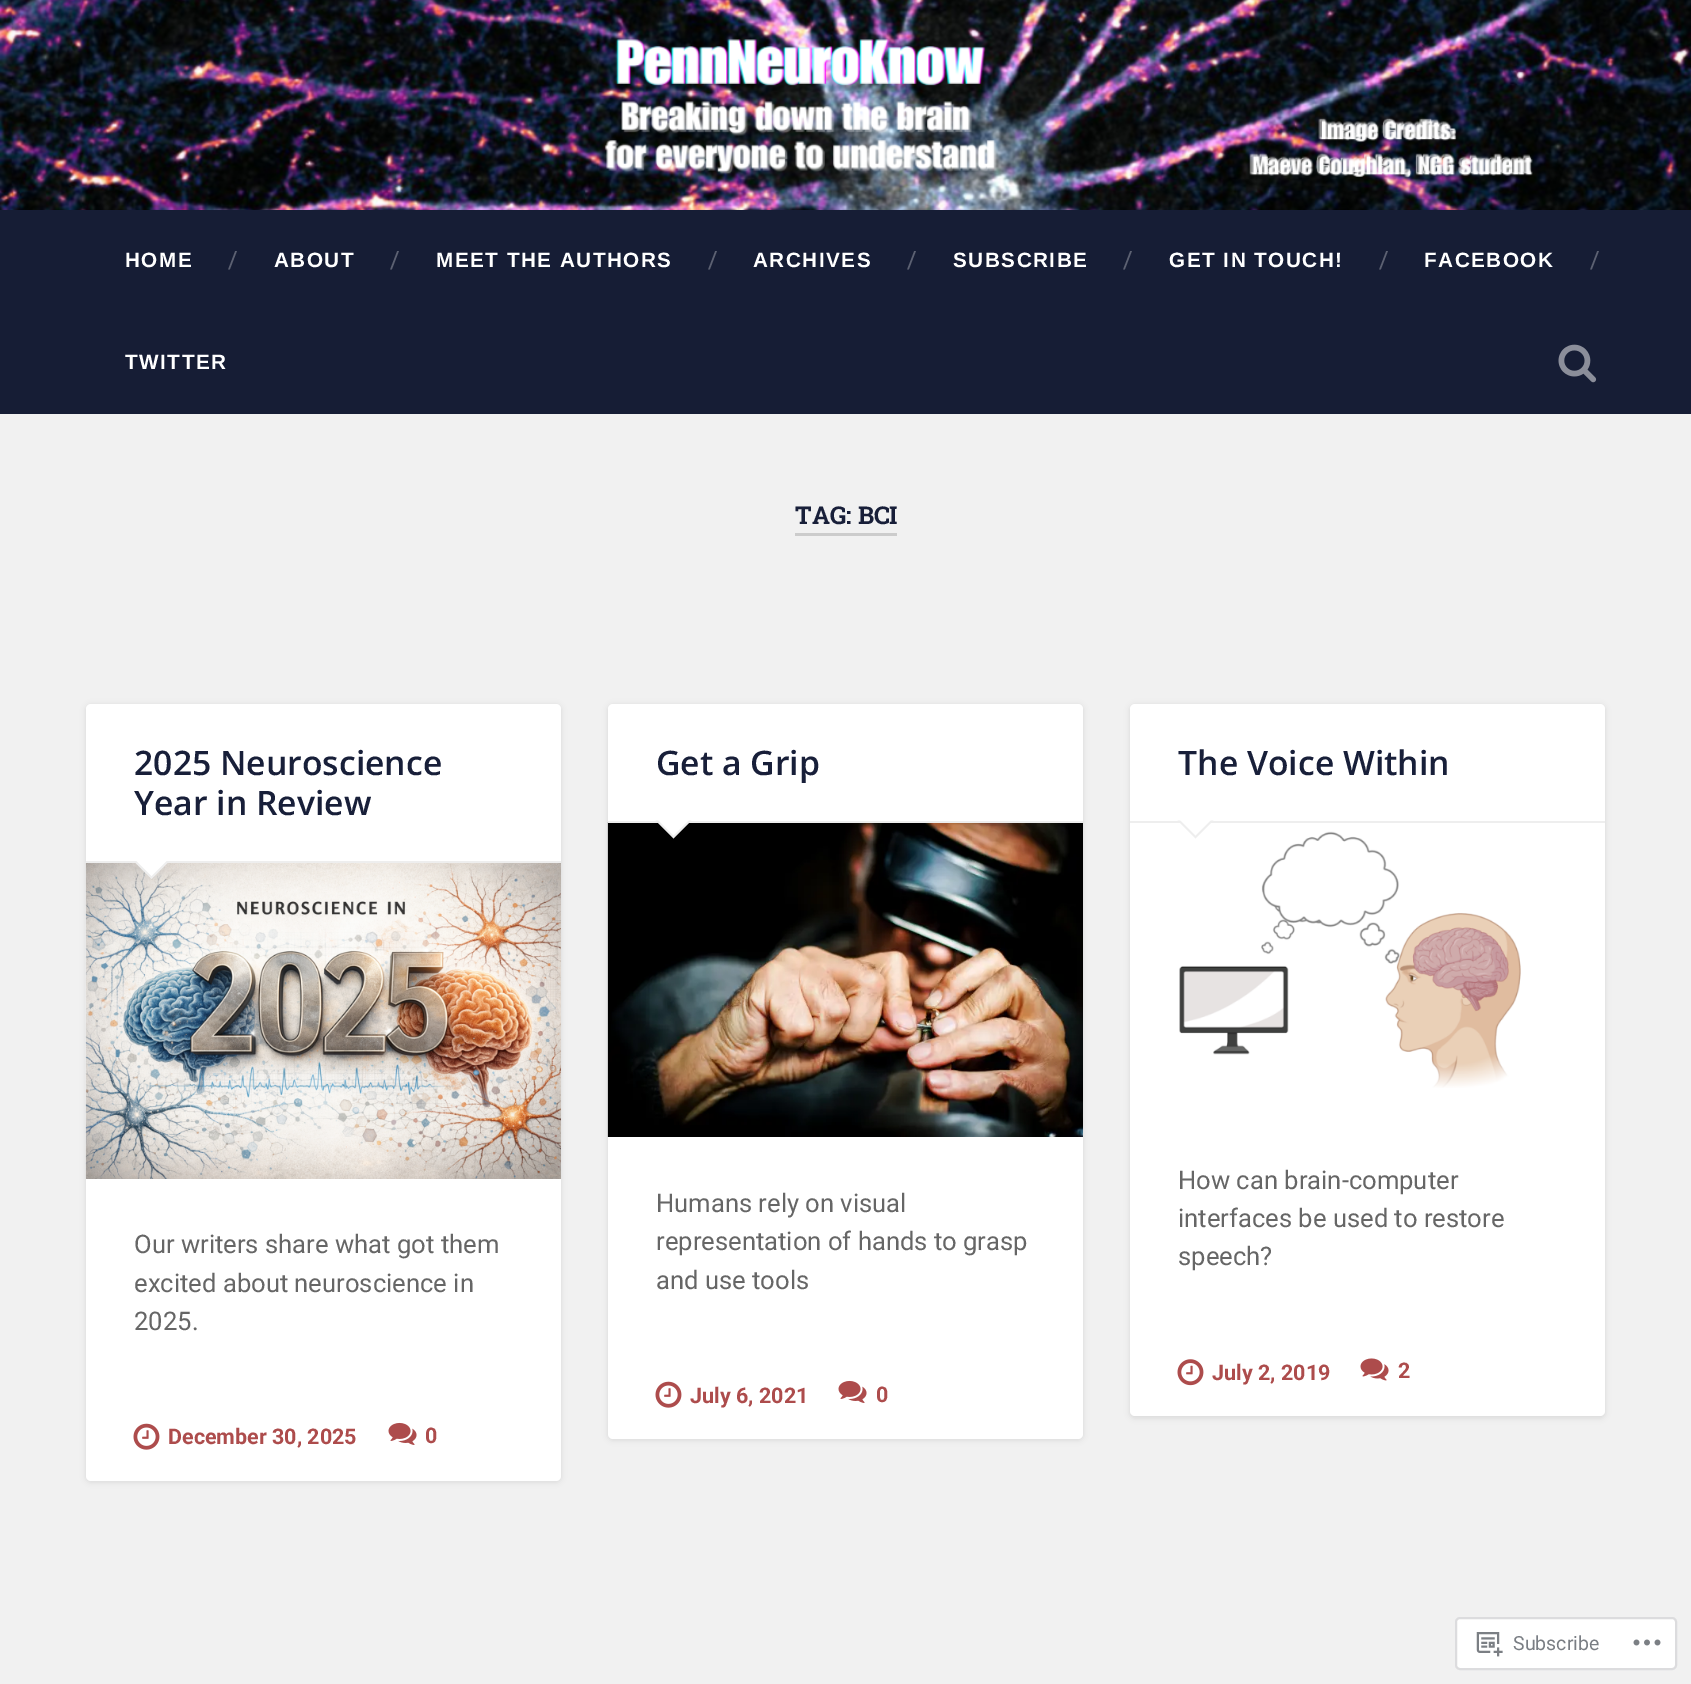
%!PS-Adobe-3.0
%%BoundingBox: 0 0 1691 1684
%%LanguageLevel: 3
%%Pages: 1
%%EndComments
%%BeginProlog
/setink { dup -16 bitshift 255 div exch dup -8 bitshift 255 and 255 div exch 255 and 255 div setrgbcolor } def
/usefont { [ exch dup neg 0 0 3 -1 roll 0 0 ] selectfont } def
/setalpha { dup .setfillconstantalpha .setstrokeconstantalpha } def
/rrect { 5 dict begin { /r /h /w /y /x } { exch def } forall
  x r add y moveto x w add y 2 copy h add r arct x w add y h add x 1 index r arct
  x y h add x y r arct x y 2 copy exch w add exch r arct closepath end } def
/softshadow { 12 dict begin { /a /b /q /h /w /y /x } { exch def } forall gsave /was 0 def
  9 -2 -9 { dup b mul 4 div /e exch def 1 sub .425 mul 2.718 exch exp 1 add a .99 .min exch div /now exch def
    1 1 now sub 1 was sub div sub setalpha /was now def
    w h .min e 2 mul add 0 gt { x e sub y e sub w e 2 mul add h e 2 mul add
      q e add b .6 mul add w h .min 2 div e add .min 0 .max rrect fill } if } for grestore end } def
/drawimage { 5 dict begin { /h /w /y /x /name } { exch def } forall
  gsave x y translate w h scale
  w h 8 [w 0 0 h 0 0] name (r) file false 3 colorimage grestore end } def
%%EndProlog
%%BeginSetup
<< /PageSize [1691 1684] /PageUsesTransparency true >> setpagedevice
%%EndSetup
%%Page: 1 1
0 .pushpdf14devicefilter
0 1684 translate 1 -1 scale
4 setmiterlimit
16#F1F1F1 setink
0 0 1691 1684 rectfill
(img1.raw) 0 0 1691 210 drawimage
16#161D35 setink
0 210 1691 204 rectfill
/LiberationSans-Bold 20.7 usefont
16#FFFFFF setink
125 267 moveto 1.5 0 (HOME) ashow
/RobotoSlab-Regular 24 usefont
16#5C6172 setink
228 268 moveto (/) show
/LiberationSans-Bold 20.7 usefont
16#FFFFFF setink
274 267 moveto 1.5 0 (ABOUT) ashow
/RobotoSlab-Regular 24 usefont
16#5C6172 setink
390 268 moveto (/) show
/LiberationSans-Bold 20.7 usefont
16#FFFFFF setink
436 267 moveto 1.5 0 (MEET THE AUTHORS) ashow
/RobotoSlab-Regular 24 usefont
16#5C6172 setink
708 268 moveto (/) show
/LiberationSans-Bold 20.7 usefont
16#FFFFFF setink
753 267 moveto 1.5 0 (ARCHIVES) ashow
/RobotoSlab-Regular 24 usefont
16#5C6172 setink
907 268 moveto (/) show
/LiberationSans-Bold 20.7 usefont
16#FFFFFF setink
953 267 moveto 1.5 0 (SUBSCRIBE) ashow
/RobotoSlab-Regular 24 usefont
16#5C6172 setink
1123 268 moveto (/) show
/LiberationSans-Bold 20.7 usefont
16#FFFFFF setink
1169 267 moveto 1.5 0 (GET IN TOUCH!) ashow
/RobotoSlab-Regular 24 usefont
16#5C6172 setink
1379 268 moveto (/) show
/LiberationSans-Bold 20.7 usefont
16#FFFFFF setink
1424 267 moveto 1.5 0 (FACEBOOK) ashow
/RobotoSlab-Regular 24 usefont
16#5C6172 setink
1590 268 moveto (/) show
/LiberationSans-Bold 20.7 usefont
16#FFFFFF setink
125 369 moveto 1.5 0 (TWITTER) ashow
(img2.raw) 1558 344 39 39 drawimage
16#CCCCCC setink
795 533 102 3 rectfill
/RobotoSlab-Bold 24.5 usefont
16#181F39 setink
795 524 moveto (TAG: BCI) show
16#000000 setink
86 705 475 777 5 3 0.1 softshadow
16#FFFFFF setink
86 704 475 777 5 rrect fill
(img3.raw) 85 862 476 317 drawimage
16#EEEEEE setink
86 861 475 2 rectfill
/OpenSans-SemiBold 33.75 usefont
16#181F39 setink
134 775 moveto (2025 Neuroscience) show
134 815 moveto (Year in Review) show
16#EEEEEE setink
133.5 861 moveto 169.5 861 lineto 151.5 879 lineto closepath fill
16#FFFFFF setink
135 859.5 moveto 168 859.5 lineto 151.5 876 lineto closepath fill
/Roboto-Regular 25.6 usefont
16#666666 setink
[
    [(Our writers share what got them) 134 1253]
    [(excited about neuroscience in) 134 1292]
    [(2025.) 134 1330]
] { aload pop moveto show } forall
(img4.raw) 133 1423 27 27 drawimage
/Roboto-Bold 21.5 usefont
16#AD4C4C setink
168 1444 moveto (December 30, 2025) show
(img5.raw) 388 1422 29 23 drawimage
425 1443 moveto (0) show
16#000000 setink
608 705 475 735 5 3 0.1 softshadow
16#FFFFFF setink
608 704 475 735 5 rrect fill
(img6.raw) 607 822 476 315 drawimage
16#EEEEEE setink
608 821 475 2 rectfill
/OpenSans-SemiBold 33.75 usefont
16#181F39 setink
656 775 moveto (Get a Grip) show
16#EEEEEE setink
655.5 820.5 moveto 691.5 820.5 lineto 673.5 838.5 lineto closepath fill
16#FFFFFF setink
657 819 moveto 690 819 lineto 673.5 835.5 lineto closepath fill
/Roboto-Regular 25.6 usefont
16#666666 setink
[
    [(Humans rely on visual) 656 1212]
    [(representation of hands to grasp) 656 1250]
    [(and use tools) 656 1289]
] { aload pop moveto show } forall
(img4.raw) 655 1381 27 27 drawimage
/Roboto-Bold 21.5 usefont
16#AD4C4C setink
690 1403 moveto (July 6, 2021) show
(img5.raw) 838 1380 29 23 drawimage
876 1402 moveto (0) show
16#000000 setink
1130 705 475 713 5 3 0.1 softshadow
16#FFFFFF setink
1130 704 475 712 5 rrect fill
16#EEEEEE setink
1130 821 475 2 rectfill
/OpenSans-SemiBold 33.75 usefont
16#181F39 setink
1178 775 moveto (The Voice Within) show
(img7.raw) 1179 831 342 257 drawimage
16#EEEEEE setink
1177.5 820.5 moveto 1213.5 820.5 lineto 1195.5 838.5 lineto closepath fill
16#FFFFFF setink
1179 819 moveto 1212 819 lineto 1195.5 835.5 lineto closepath fill
/Roboto-Regular 25.6 usefont
16#666666 setink
[
    [(How can brain-computer) 1178 1189]
    [(interfaces be used to restore) 1178 1227]
    [(speech?) 1178 1265]
] { aload pop moveto show } forall
(img8.raw) 1177 1359 27 27 drawimage
/Roboto-Bold 21.5 usefont
16#AD4C4C setink
1212 1380 moveto (July 2, 2019) show
(img9.raw) 1360 1358 29 23 drawimage
1398 1378 moveto (2) show
16#FFFFFF setink
1456 1618 220 51 4 rrect gsave fill grestore
16#DCDCDE setink
2 setlinewidth
stroke
(img10.raw) 1476 1632 27 25 drawimage
/Roboto-Regular 19.5 usefont
16#7A7E84 setink
1513 1650 moveto (Subscribe) show
(img11.raw) 1633 1639 28 7 drawimage
.poppdf14devicefilter showpage
%%EOF
